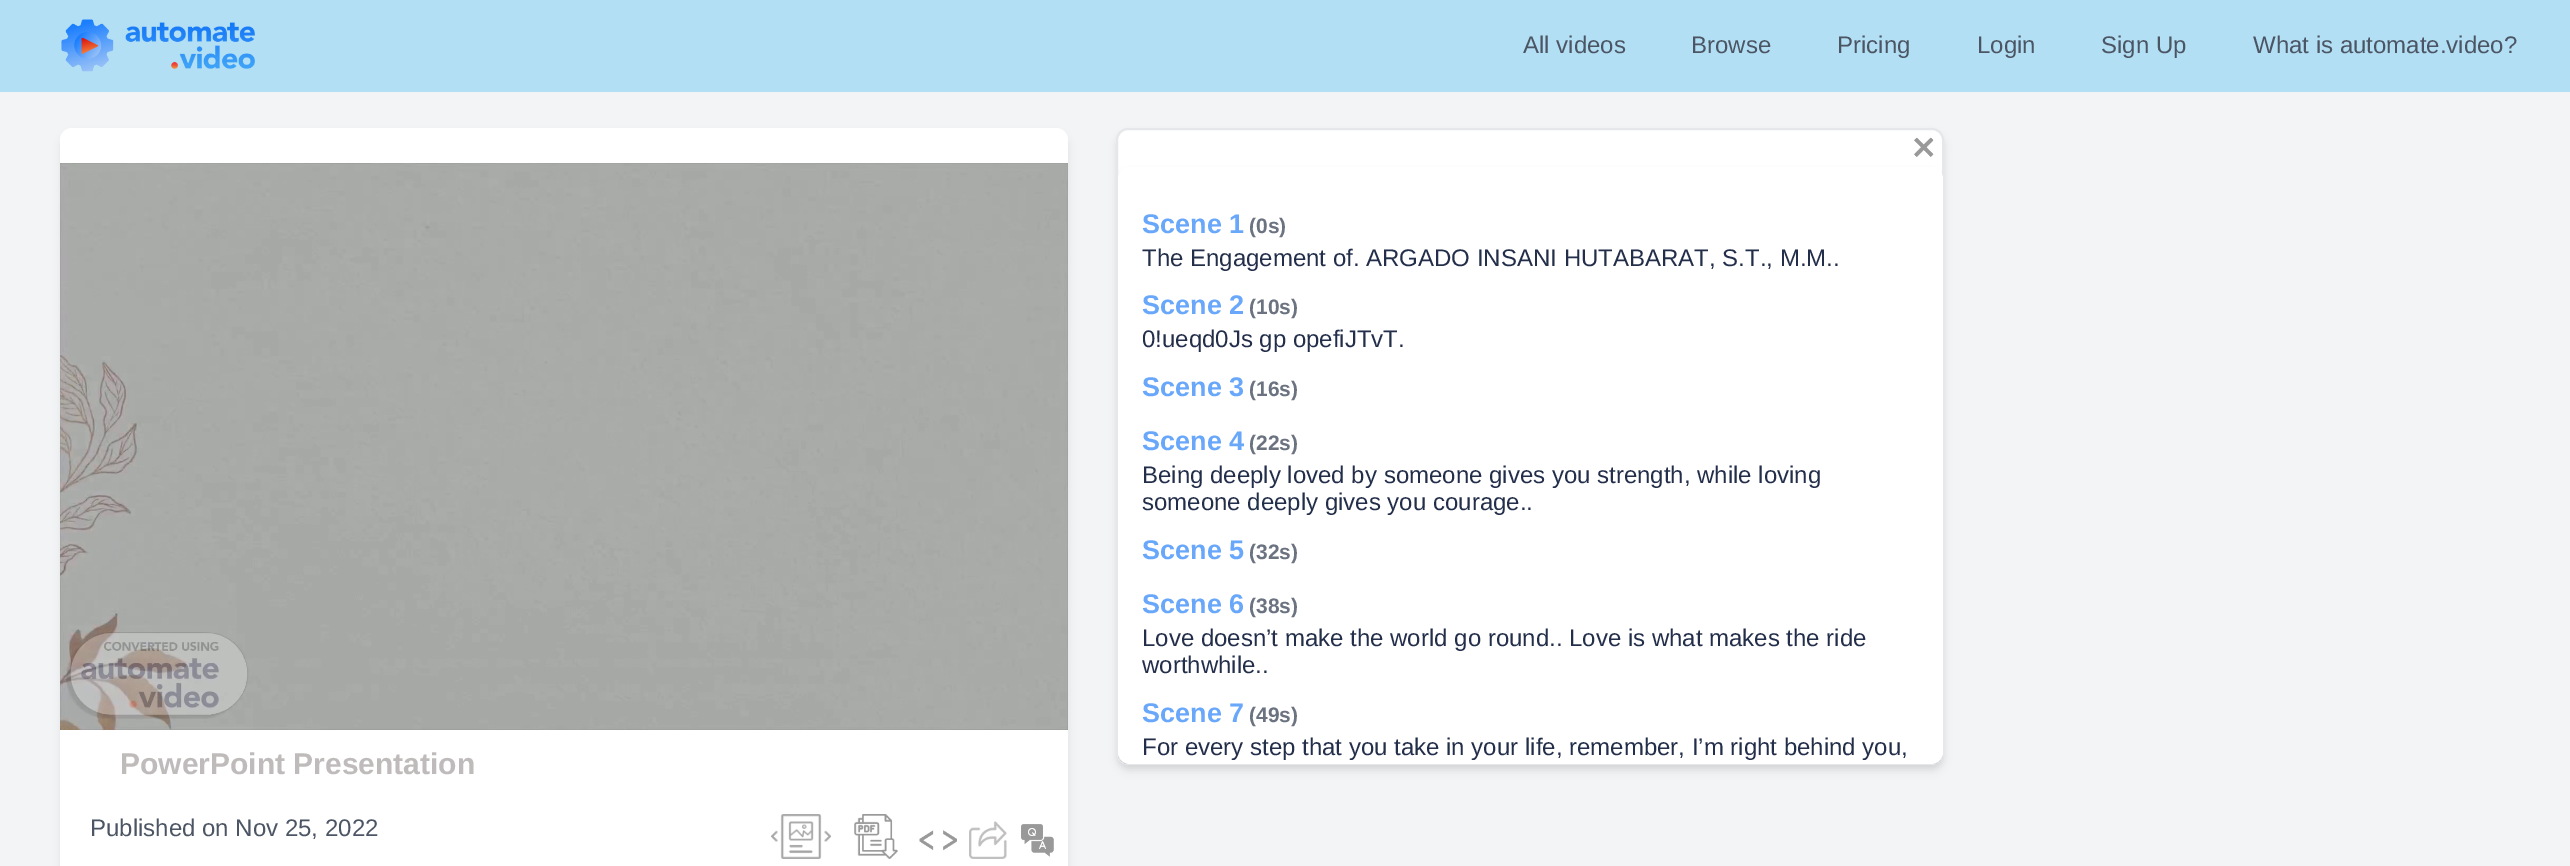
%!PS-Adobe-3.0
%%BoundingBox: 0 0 2570 866
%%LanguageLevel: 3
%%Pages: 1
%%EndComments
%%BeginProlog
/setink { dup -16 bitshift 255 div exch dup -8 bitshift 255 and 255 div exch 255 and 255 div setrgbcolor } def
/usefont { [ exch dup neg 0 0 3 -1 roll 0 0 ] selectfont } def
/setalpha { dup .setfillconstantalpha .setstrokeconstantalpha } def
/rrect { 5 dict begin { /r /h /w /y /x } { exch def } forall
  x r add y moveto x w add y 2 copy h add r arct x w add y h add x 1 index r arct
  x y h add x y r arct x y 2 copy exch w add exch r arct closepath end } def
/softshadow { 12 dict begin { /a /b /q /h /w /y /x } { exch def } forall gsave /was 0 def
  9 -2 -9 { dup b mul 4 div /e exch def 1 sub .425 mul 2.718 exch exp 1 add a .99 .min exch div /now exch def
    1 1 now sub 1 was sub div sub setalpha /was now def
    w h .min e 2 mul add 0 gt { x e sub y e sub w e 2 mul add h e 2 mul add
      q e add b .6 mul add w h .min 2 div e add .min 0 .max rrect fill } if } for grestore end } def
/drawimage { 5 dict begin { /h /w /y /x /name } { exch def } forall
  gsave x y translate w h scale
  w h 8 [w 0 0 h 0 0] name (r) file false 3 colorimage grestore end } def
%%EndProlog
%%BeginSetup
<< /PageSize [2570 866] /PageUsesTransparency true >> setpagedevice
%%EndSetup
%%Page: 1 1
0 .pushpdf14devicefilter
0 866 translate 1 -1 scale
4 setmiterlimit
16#F3F4F6 setink
0 0 2570 866 rectfill
16#B3DFF5 setink
0 0 2570 92 rectfill
(img1.raw) 61 19 194 53 drawimage
/LiberationSans-Regular 24 usefont
16#4B5563 setink
[
    [(All videos) 1523 53]
    [(Browse) 1691 53]
    [(Pricing) 1837 53]
    [(Login) 1977 53]
    [(Sign Up) 2101 53]
    [(What is automate.video?) 2253 53]
] { aload pop moveto show } forall
16#000000 setink
1119 134 822 631 9 3 0.1 softshadow
1118 135 825 635 11 4.5 0.1 softshadow
16#FFFFFF setink
1117 129 826 635 11 rrect gsave fill grestore
16#E5E7EB setink
2 setlinewidth
stroke
(img2.raw) 1914 137 20 20 drawimage
gsave
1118 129 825 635 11 rrect clip newpath
16#000000 setink
1121 173 819 591 9 3 0.1 softshadow
1119 174 822 594 11 4.5 0.1 softshadow
grestore
16#FFFFFF setink
1118 167 825 597 12 rrect fill
/LiberationSans-Bold 27 usefont
16#68A7F9 setink
1142 233 moveto (Scene 1) show
/LiberationSans-Bold 21 usefont
16#6B7280 setink
1249 233 moveto (\(0s\)) show
/LiberationSans-Regular 24 usefont
16#232E4A setink
1142 266 moveto (The Engagement of. ARGADO INSANI HUTABARAT, S.T., M.M..) show
/LiberationSans-Bold 27 usefont
16#68A7F9 setink
1142 314 moveto (Scene 2) show
/LiberationSans-Bold 21 usefont
16#6B7280 setink
1249 314 moveto (\(10s\)) show
/LiberationSans-Regular 24 usefont
16#232E4A setink
1142 347 moveto (0!ueqd0Js gp opefiJTvT.) show
/LiberationSans-Bold 27 usefont
16#68A7F9 setink
1142 396 moveto (Scene 3) show
/LiberationSans-Bold 21 usefont
16#6B7280 setink
1249 396 moveto (\(16s\)) show
/LiberationSans-Bold 27 usefont
16#68A7F9 setink
1142 450 moveto (Scene 4) show
/LiberationSans-Bold 21 usefont
16#6B7280 setink
1249 450 moveto (\(22s\)) show
/LiberationSans-Regular 24 usefont
16#232E4A setink
1142 483 moveto (Being deeply loved by someone gives you strength, while loving) show
1142 510 moveto (someone deeply gives you courage..) show
/LiberationSans-Bold 27 usefont
16#68A7F9 setink
1142 559 moveto (Scene 5) show
/LiberationSans-Bold 21 usefont
16#6B7280 setink
1249 559 moveto (\(32s\)) show
/LiberationSans-Bold 27 usefont
16#68A7F9 setink
1142 613 moveto (Scene 6) show
/LiberationSans-Bold 21 usefont
16#6B7280 setink
1249 613 moveto (\(38s\)) show
/LiberationSans-Regular 24 usefont
16#232E4A setink
1142 646 moveto (Love doesn’t make the world go round.. Love is what makes the ride) show
1142 673 moveto (worthwhile..) show
/LiberationSans-Bold 27 usefont
16#68A7F9 setink
1142 722 moveto (Scene 7) show
/LiberationSans-Bold 21 usefont
16#6B7280 setink
1249 722 moveto (\(49s\)) show
/LiberationSans-Regular 24 usefont
16#232E4A setink
1142 755 moveto (For every step that you take in your life, remember, I’m right behind you,) show
16#000000 setink
62 135 1005 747 11 4.5 0.1 softshadow
16#FFFFFF setink
60 128 1008 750 12 rrect fill
(img3.raw) 60 163 1008 567 drawimage
/LiberationSans-Bold 30 usefont
16#BFBBBB setink
120 774 moveto (PowerPoint Presentation) show
/LiberationSans-Regular 24 usefont
16#4B5563 setink
90 836 moveto (Published on Nov 25, 2022) show
(img4.raw) 771 814 60 45 drawimage
(img5.raw) 854 814 44 45 drawimage
(img6.raw) 919 830 38 21 drawimage
(img7.raw) 969 821 38 38 drawimage
(img8.raw) 1021 824 33 33 drawimage
.poppdf14devicefilter showpage
%%EOF
